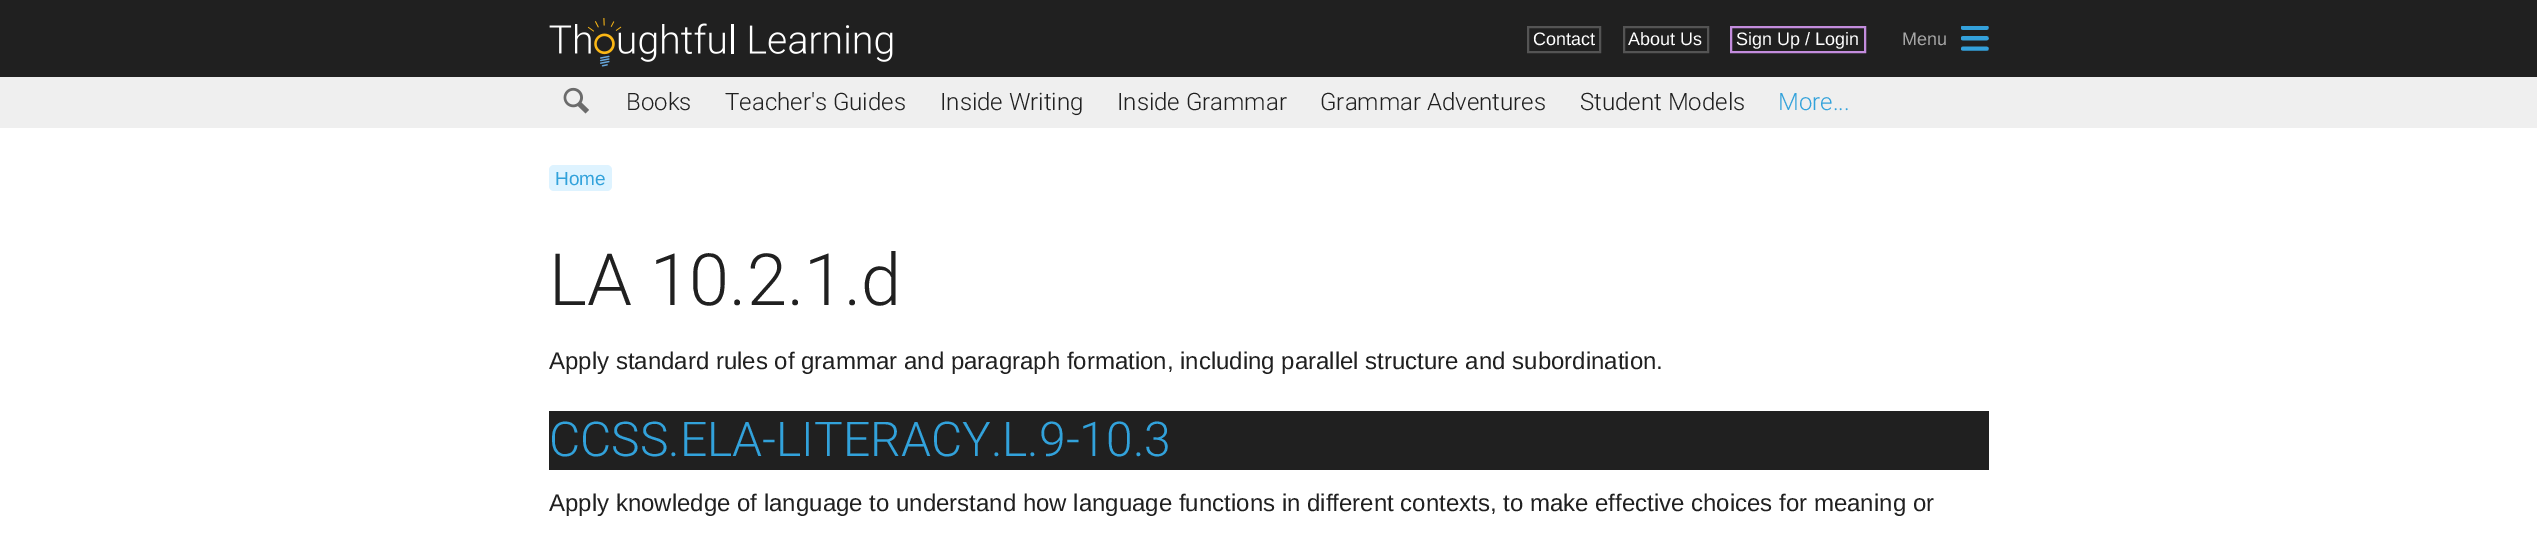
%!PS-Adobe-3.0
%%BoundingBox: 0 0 2537 545
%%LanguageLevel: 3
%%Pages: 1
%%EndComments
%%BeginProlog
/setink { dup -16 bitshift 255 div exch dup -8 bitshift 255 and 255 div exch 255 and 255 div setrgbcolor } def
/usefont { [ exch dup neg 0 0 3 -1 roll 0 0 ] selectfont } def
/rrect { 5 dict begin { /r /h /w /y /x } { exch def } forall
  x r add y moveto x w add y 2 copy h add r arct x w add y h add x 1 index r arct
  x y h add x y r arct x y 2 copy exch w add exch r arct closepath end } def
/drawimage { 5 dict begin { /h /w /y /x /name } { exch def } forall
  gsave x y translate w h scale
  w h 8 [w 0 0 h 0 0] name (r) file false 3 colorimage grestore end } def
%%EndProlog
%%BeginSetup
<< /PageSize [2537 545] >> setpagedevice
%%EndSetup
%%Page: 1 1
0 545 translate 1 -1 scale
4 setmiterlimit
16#FFFFFF setink
0 0 2537 545 rectfill
16#202020 setink
0 0 2537 77 rectfill
(img1.raw) 549 18 344 49 drawimage
16#545454 setink
2 setlinewidth
1528 27 72 25 rectstroke
/LiberationSans-Regular 18 usefont
16#FFFFFF setink
1533 45 moveto (Contact) show
16#545454 setink
1624 27 84 25 rectstroke
16#FFFFFF setink
1628 45 moveto (About Us) show
16#C38CDD setink
1731 27 134 25 rectstroke
16#FFFFFF setink
1736 45 moveto (Sign Up / Login) show
(img2.raw) 1961 26 28 25 drawimage
16#A6A6A6 setink
1902 45 moveto (Menu) show
16#EFEFEF setink
0 77 2537 51 rectfill
(img3.raw) 563 87 26 27 drawimage
/Roboto-Light 24 usefont
16#202020 setink
[
    [(Books) 626 110]
    [(Teacher's Guides) 725 110]
    [(Inside Writing) 940 110]
    [(Inside Grammar) 1117 110]
    [(Grammar Adventures) 1320 110]
    [(Student Models) 1580 110]
] { aload pop moveto show } forall
16#32A2DB setink
1778 110 moveto (More...) show
16#DEF3FF setink
549 165 63 26 5 rrect fill
/LiberationSans-Regular 19 usefont
16#32A2DB setink
555 185 moveto (Home) show
/Roboto-Light 72 usefont
16#202020 setink
549 305 moveto (LA 10.2.1.d) show
/LiberationSans-Regular 24 usefont
549 369 moveto (Apply standard rules of grammar and paragraph formation, including parallel structure and subordination.) show
549 411 1440 59 rectfill
/Roboto-Light 48 usefont
16#32A2DB setink
549 456 moveto (CCSS.ELA-LITERACY.L.9-10.3) show
/LiberationSans-Regular 24 usefont
16#202020 setink
549 511 moveto (Apply knowledge of language to understand how language functions in different contexts, to make effective choices for meaning or) show
showpage
%%EOF
